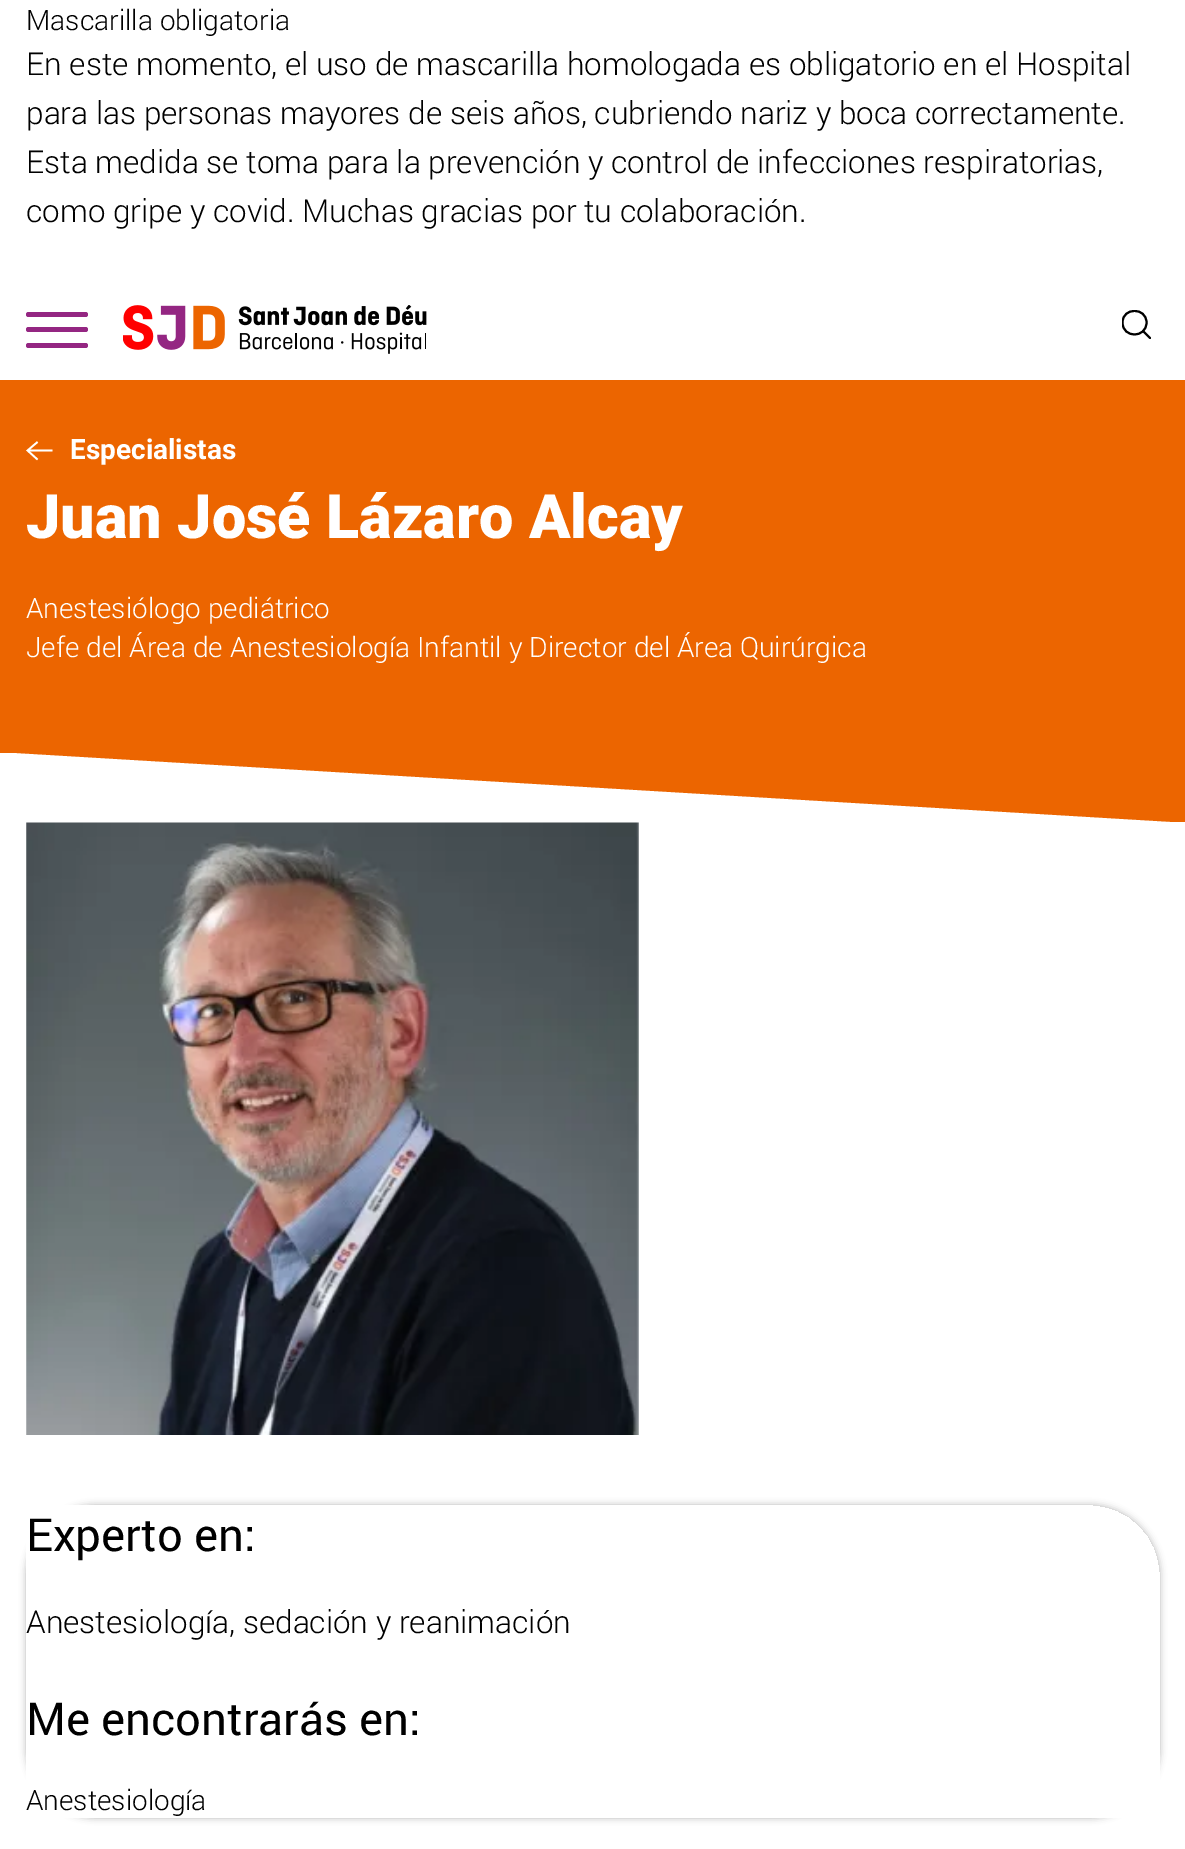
%!PS-Adobe-3.0
%%BoundingBox: 0 0 1185 1849
%%LanguageLevel: 3
%%Pages: 1
%%EndComments
%%BeginProlog
/setink { dup -16 bitshift 255 div exch dup -8 bitshift 255 and 255 div exch 255 and 255 div setrgbcolor } def
/usefont { [ exch dup neg 0 0 3 -1 roll 0 0 ] selectfont } def
/setalpha { dup .setfillconstantalpha .setstrokeconstantalpha } def
/rrect { 5 dict begin { /r /h /w /y /x } { exch def } forall
  x r add y moveto x w add y 2 copy h add r arct x w add y h add x 1 index r arct
  x y h add x y r arct x y 2 copy exch w add exch r arct closepath end } def
/softshadow { 12 dict begin { /a /b /q /h /w /y /x } { exch def } forall gsave /was 0 def
  9 -2 -9 { dup b mul 4 div /e exch def 1 sub .425 mul 2.718 exch exp 1 add a .99 .min exch div /now exch def
    1 1 now sub 1 was sub div sub setalpha /was now def
    w h .min e 2 mul add 0 gt { x e sub y e sub w e 2 mul add h e 2 mul add
      q e add b .6 mul add w h .min 2 div e add .min 0 .max rrect fill } if } for grestore end } def
/drawimage { 5 dict begin { /h /w /y /x /name } { exch def } forall
  gsave x y translate w h scale
  w h 8 [w 0 0 h 0 0] name (r) file false 3 colorimage grestore end } def
%%EndProlog
%%BeginSetup
<< /PageSize [1185 1849] /PageUsesTransparency true >> setpagedevice
%%EndSetup
%%Page: 1 1
0 .pushpdf14devicefilter
0 1849 translate 1 -1 scale
4 setmiterlimit
16#FFFFFF setink
0 0 1185 1849 rectfill
/Roboto-Light 28 usefont
16#000000 setink
26 30 moveto (Mascarilla obligatoria) show
/Roboto-Light 31.5 usefont
[
    [(En este momento, el uso de mascarilla homologada es obligatorio en el Hospital) 26 75]
    [(para las personas mayores de seis años, cubriendo nariz y boca correctamente.) 26 124]
    [(Esta medida se toma para la prevención y control de infecciones respiratorias,) 26 173]
    [(como gripe y covid. Muchas gracias por tu colaboración.) 26 222]
] { aload pop moveto show } forall
16#942682 setink
26 312 62 5 2.5 rrect fill
26 327 62 5 2.5 rrect fill
26 343 62 5 2.5 rrect fill
(img1.raw) 123 305 304 49 drawimage
gsave
1122 310 30 30 rectclip
16#000000 setink
2 setlinewidth
1 setlinecap
1 setlinejoin
1122.5 322.5 moveto 1122.5 338.5 1146.5 338.5 1146.5 322.5 curveto 1146.5 307 1122.5 307 1122.5 322.5 curveto closepath stroke
grestore
16#000000 setink
2 setlinewidth
1 setlinecap
1 setlinejoin
1150 338 moveto 1143 331 lineto stroke
16#EC6500 setink
0 380 1185 373 rectfill
16#FFFFFF setink
1.7 setlinewidth
0 setlinecap
0 setlinejoin
52.5 450.5 moveto 27.5 450.5 lineto 37.5 442 moveto 27.5 450.5 lineto 37.5 459.5 lineto stroke
/Roboto-Bold 28 usefont
70 459 moveto (Especialistas) show
/Roboto-Black 61.25 usefont
26 538 moveto (Juan José Lázaro Alcay) show
/Roboto-Light 28 usefont
26 618 moveto (Anestesiólogo pediátrico) show
26 657 moveto (Jefe del Área de Anestesiología Infantil y Director del Área Quirúrgica) show
16#EC6500 setink
0 752 moveto 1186 752 lineto 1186 822 lineto 1174 822 lineto closepath fill
(img2.raw) 26 822 613 613 drawimage
gsave
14 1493 moveto 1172 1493 lineto 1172 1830 lineto 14 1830 lineto closepath 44 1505 moveto 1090 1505 lineto 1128.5 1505 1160 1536.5 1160 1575 curveto 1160 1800 lineto 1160 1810 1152 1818 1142 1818 curveto 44 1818 lineto 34 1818 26 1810 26 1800 curveto 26 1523 lineto 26 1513 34 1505 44 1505 curveto closepath eoclip newpath
16#000000 setink
26 1505 1134 313 70 3.5 0.27 softshadow
grestore
/Roboto-Regular 45.5 usefont
16#000000 setink
26 1551 moveto (Experto en:) show
/Roboto-Light 31.5 usefont
26 1633 moveto (Anestesiología, sedación y reanimación) show
/Roboto-Regular 45.5 usefont
26 1735 moveto (Me encontrarás en:) show
/Roboto-Light 28 usefont
26 1810 moveto (Anestesiología) show
.poppdf14devicefilter showpage
%%EOF
